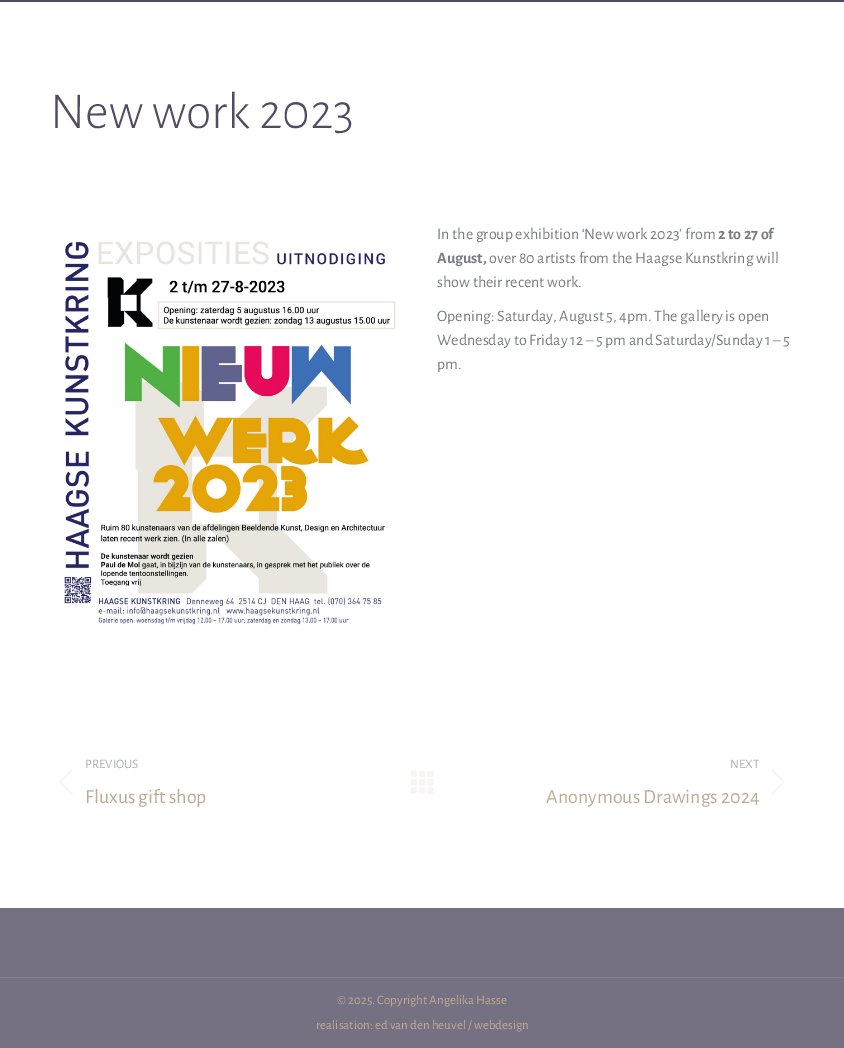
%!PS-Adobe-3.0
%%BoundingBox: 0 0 844 1048
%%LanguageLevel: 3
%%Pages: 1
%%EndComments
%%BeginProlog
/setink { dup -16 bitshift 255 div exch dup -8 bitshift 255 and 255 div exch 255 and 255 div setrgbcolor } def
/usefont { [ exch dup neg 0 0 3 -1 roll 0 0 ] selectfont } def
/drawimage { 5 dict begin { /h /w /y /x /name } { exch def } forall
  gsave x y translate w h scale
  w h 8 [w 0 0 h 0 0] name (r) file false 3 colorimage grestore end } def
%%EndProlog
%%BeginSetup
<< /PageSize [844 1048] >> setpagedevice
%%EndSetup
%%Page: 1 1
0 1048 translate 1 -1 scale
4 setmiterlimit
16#757082 setink
0 0 844 1048 rectfill
16#524C63 setink
0 0 844 2 rectfill
16#FFFFFF setink
0 2 844 906 rectfill
/AlegreyaSans-Light 52 usefont
16#524C62 setink
50 128 moveto (New work 2023) show
(img1.raw) 62 241 334 385 drawimage
/AlegreyaSans-Regular 16 usefont
16#787D85 setink
437 239 moveto (In the group exhibition ‘New work 2023’ from) show
/AlegreyaSans-Bold 16 usefont
718 239 moveto (2 to 27 of) show
437 263 moveto (August,) show
/AlegreyaSans-Regular 16 usefont
[
    [(over 80 artists from the Haagse Kunstkring will) 489 263]
    [(show their recent work.) 437 287]
    [(Opening: Saturday, August 5, 4pm. The gallery is open) 437 321]
    [(Wednesday to Friday 12 – 5 pm and Saturday/Sunday 1 – 5) 437 345]
    [(pm.) 437 369]
] { aload pop moveto show } forall
/AlegreyaSans-Regular 13 usefont
16#ADB0B6 setink
85 768 moveto (PREVIOUS) show
(img2.raw) 59 769 14 26 drawimage
/AlegreyaSans-Regular 20 usefont
16#BDAB93 setink
85 803 moveto (Fluxus gift shop) show
(img3.raw) 410 770 24 24 drawimage
/AlegreyaSans-Regular 13 usefont
16#ADB0B6 setink
730 768 moveto (NEXT) show
(img4.raw) 771 769 14 26 drawimage
/AlegreyaSans-Regular 20 usefont
16#BDAB93 setink
546 803 moveto (Anonymous Drawings 2024) show
16#878392 setink
0 977 844 1 rectfill
/AlegreyaSans-Regular 13 usefont
16#BDAB93 setink
337 1004 moveto (© 2025. Copyright Angelika Hasse) show
316 1029 moveto (realisation: ed van den heuvel / webdesign) show
showpage
%%EOF
